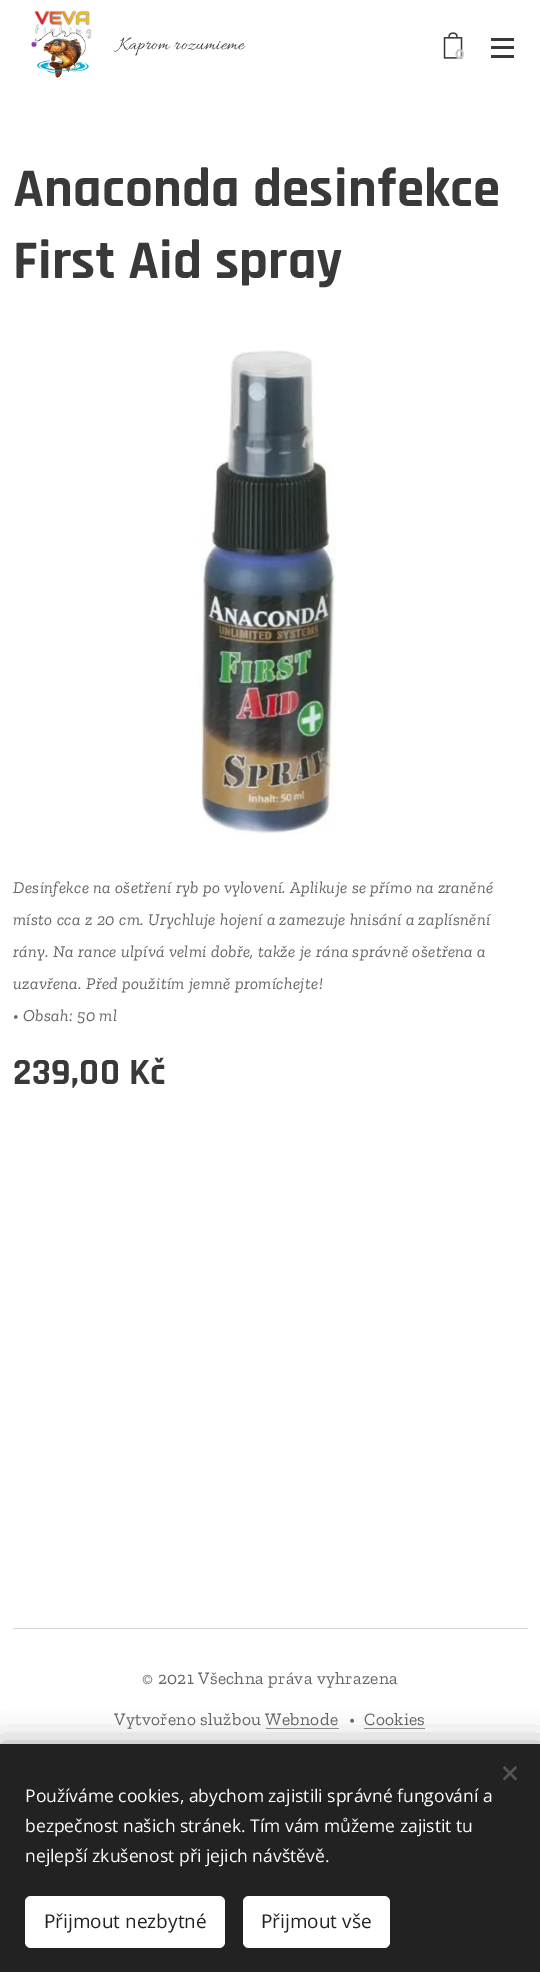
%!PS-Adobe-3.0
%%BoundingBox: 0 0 540 1972
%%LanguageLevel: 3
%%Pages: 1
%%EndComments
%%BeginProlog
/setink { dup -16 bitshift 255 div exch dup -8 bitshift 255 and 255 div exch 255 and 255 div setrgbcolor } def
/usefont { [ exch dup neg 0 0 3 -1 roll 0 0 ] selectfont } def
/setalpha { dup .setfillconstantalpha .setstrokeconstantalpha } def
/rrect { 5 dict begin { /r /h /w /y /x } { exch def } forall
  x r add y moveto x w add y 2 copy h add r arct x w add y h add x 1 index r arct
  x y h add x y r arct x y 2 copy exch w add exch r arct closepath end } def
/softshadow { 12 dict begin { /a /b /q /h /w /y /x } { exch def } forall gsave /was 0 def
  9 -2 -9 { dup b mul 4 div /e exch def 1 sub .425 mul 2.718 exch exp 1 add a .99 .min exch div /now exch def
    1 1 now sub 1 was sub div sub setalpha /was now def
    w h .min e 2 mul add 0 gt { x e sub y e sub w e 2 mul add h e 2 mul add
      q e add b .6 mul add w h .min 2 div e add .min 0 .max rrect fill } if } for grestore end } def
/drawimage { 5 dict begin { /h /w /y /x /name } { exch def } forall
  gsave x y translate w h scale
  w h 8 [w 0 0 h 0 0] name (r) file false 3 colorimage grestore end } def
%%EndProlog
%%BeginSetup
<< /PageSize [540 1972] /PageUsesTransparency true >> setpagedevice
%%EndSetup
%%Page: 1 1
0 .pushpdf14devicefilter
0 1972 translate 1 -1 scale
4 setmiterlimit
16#FFFFFF setink
0 0 540 1972 rectfill
(img1.raw) 31 10 61 68 drawimage
/Allura-Regular 19 usefont
16#393939 setink
118 49 moveto 0.32 0 (Kaprom rozumieme) ashow
(img2.raw) 443 32 20 27 drawimage
/Montserrat-Bold 14 usefont
16#C8C8C8 setink
455 59 moveto (0) show
[
    [491 46 23 3 16#393939]
    [491 38 23 3 16#393939]
    [491 55 23 3 16#393939]
] { aload pop setink rectfill } forall
/Rajdhani-Bold 55 usefont
13 206 moveto 0.32 0 (Anaconda desinfekce) ashow
13 278 moveto 0.32 0 (First Aid spray) ashow
(img3.raw) 198 350 138 484 drawimage
/ZillaSlab-Italic 16.7 usefont
16#666666 setink
13 893 moveto 0.32 0 (Desinfekce na ošetření ryb po vylovení. Aplikuje se přímo na zraněné) ashow
13 925 moveto 0.32 0 (místo cca z 20 cm. Urychluje hojení a zamezuje hnisání a zaplísnění) ashow
13 957 moveto 0.32 0 (rány. Na rance ulpívá velmi dobře, takže je rána správně ošetřena a) ashow
13 989 moveto 0.32 0 (uzavřena. Před použitím jemně promíchejte!) ashow
13 1021 moveto 0.32 0 (• Obsah: 50 ml) ashow
/Rajdhani-Bold 37.5 usefont
16#393939 setink
13 1084 moveto 0.32 0 (239,00 Kč) ashow
16#D4D4D4 setink
13 1628 515 1 rectfill
/ZillaSlab-Regular 17.5 usefont
16#666666 setink
142 1684 moveto 0.32 0 (© 2021 Všechna práva vyhrazena) ashow
114 1725 moveto 0.32 0 (Vytvořeno službou Webnode) ashow
16#949494 setink
266 1728 73 1 rectfill
16#666666 setink
349 1725 moveto 0.32 0 (•) ashow
364 1725 moveto 0.32 0 (Cookies) ashow
16#949494 setink
364 1728 61 1 rectfill
16#000000 setink
0 1744 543 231 0 15.5 0.33 softshadow
16#222222 setink
0 1744 540 228 rectfill
16#555555 setink
503 1778.5 moveto 515.5 1766 lineto 517 1768 lineto 504.5 1780.5 lineto closepath fill
504.5 1766 moveto 517 1778.5 lineto 515.5 1780.5 lineto 503 1768 lineto closepath fill
/OpenSans-Regular 17.5 usefont
16#FFFFFF setink
[
    [(Používáme cookies, abychom zajistili správné fungování a) 25 1802]
    [(bezpečnost našich stránek. Tím vám můžeme zajistit tu) 25 1832]
    [(nejlepší zkušenost při jejich návštěvě.) 25 1862]
] { aload pop moveto show } forall
25 1896 200 52 6 rrect fill
/OpenSans-Regular 19 usefont
16#222222 setink
44 1928 moveto (Přijmout nezbytné) show
16#FFFFFF setink
243 1896 147 52 6 rrect fill
16#222222 setink
261 1928 moveto (Přijmout vše) show
.poppdf14devicefilter showpage
%%EOF
